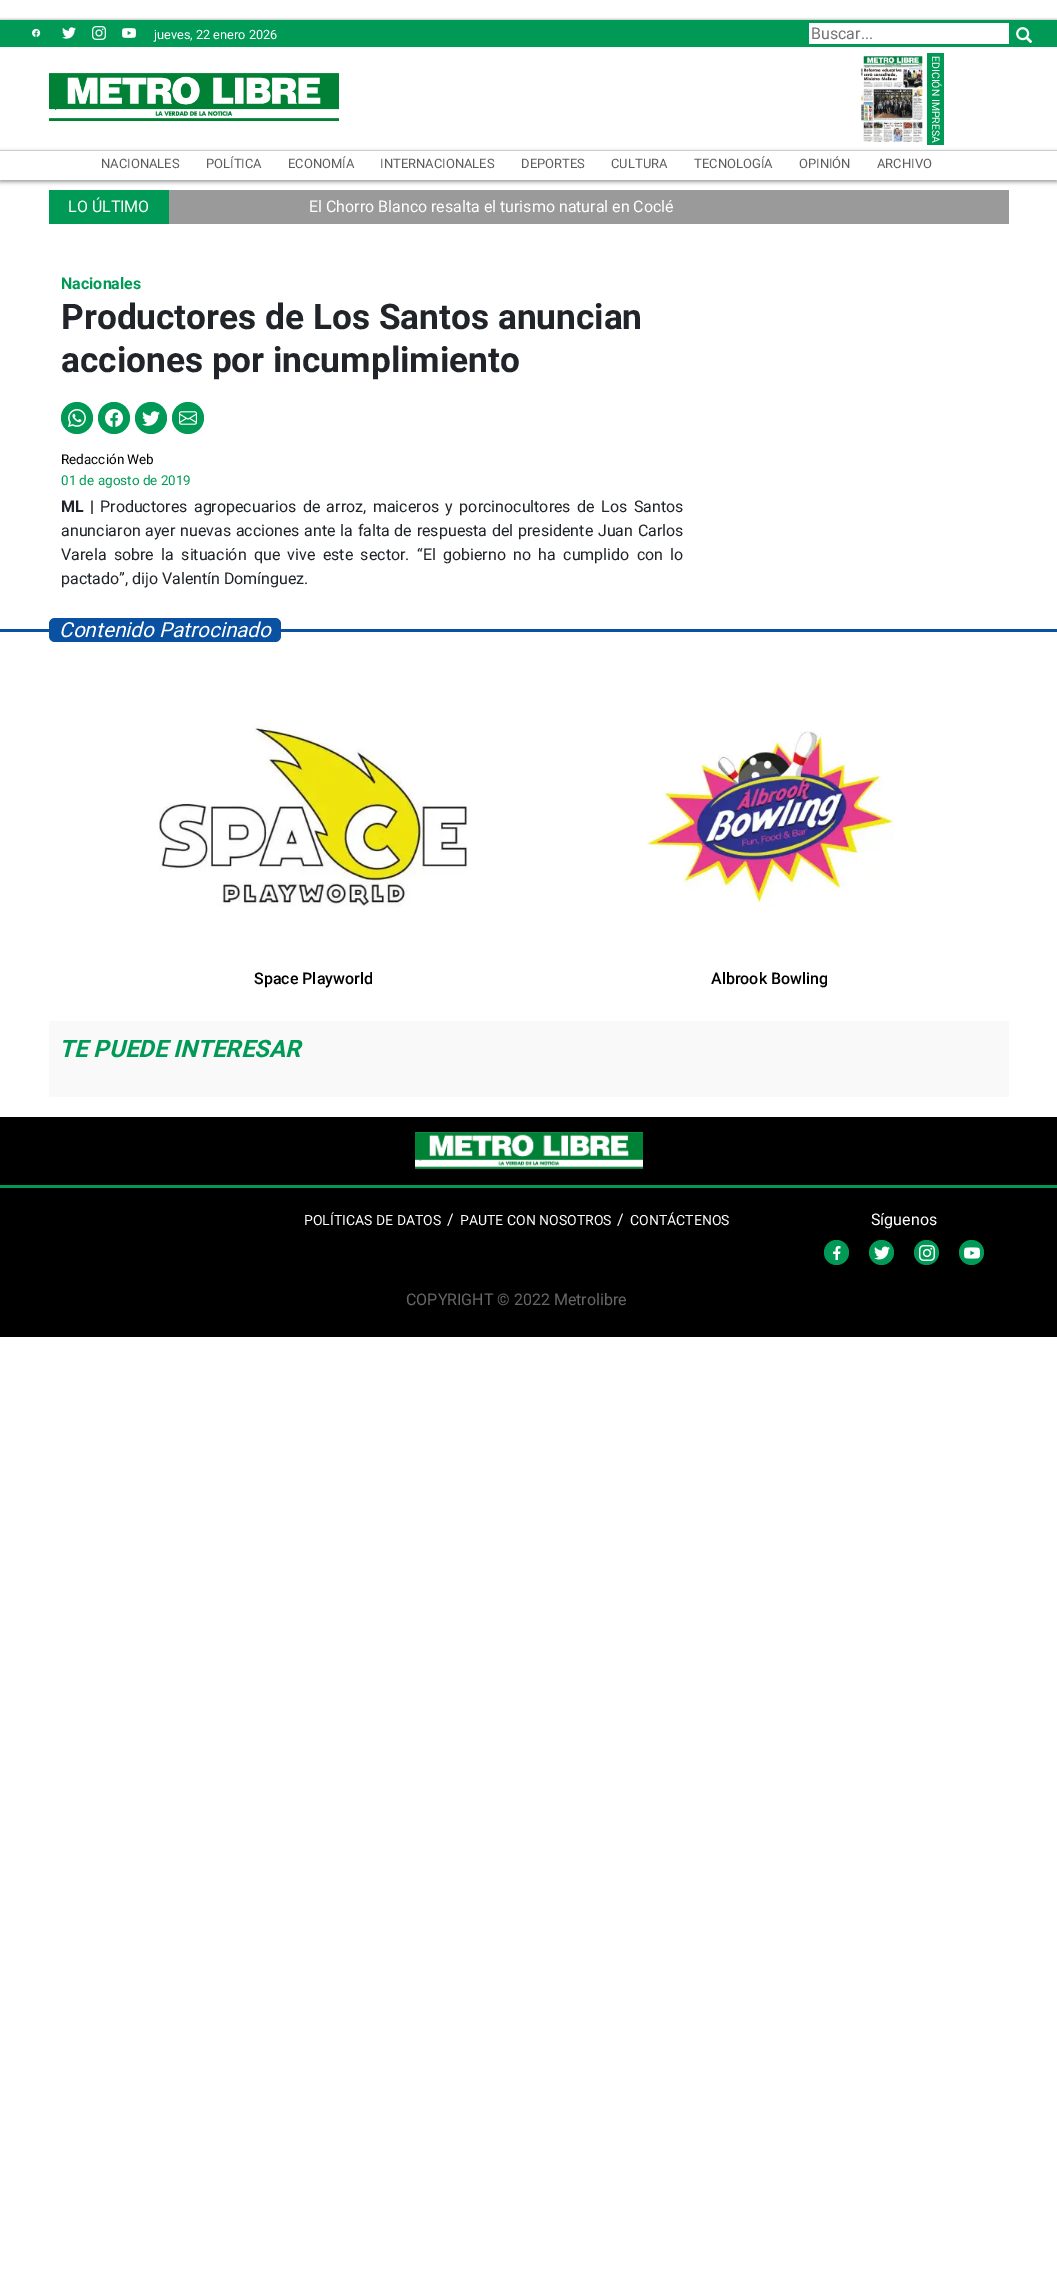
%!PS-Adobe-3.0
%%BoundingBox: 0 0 1057 2283
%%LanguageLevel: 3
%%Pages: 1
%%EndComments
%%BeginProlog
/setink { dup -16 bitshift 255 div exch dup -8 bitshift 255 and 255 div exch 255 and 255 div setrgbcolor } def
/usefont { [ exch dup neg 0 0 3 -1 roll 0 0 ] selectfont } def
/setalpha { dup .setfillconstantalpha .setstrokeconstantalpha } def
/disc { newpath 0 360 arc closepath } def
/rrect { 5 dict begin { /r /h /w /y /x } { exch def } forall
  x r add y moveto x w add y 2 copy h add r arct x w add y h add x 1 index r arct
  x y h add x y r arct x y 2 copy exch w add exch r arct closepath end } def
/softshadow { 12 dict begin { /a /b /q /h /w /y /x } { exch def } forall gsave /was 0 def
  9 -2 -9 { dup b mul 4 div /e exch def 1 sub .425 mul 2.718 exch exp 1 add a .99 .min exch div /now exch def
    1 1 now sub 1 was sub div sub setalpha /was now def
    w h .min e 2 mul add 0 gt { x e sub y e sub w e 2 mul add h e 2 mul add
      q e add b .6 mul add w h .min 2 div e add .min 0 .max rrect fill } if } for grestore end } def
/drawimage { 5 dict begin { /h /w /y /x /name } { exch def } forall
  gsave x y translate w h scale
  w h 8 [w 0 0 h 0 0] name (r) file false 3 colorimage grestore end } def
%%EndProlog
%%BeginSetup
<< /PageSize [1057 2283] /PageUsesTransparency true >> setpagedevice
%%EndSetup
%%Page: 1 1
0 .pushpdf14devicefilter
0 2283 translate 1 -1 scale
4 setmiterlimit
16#FFFFFF setink
0 0 1057 2283 rectfill
16#858585 setink
0 19 1057 27 0 1 0.5 softshadow
16#009A56 setink
0 20 1057 27 rectfill
(img1.raw) 32 28 9 9 drawimage
(img2.raw) 62 27 14 12 drawimage
(img3.raw) 92 26 14 14 drawimage
(img4.raw) 122 28 14 10 drawimage
/Roboto-Regular 12.75 usefont
16#FFFFFF setink
154 39 moveto (jueves, 22 enero 2026) show
809 23 200 21 rectfill
/Roboto-Regular 16 usefont
16#757575 setink
811 39 moveto (Buscar...) show
(img5.raw) 1016 27 17 17 drawimage
(img6.raw) 49 73 290 48 drawimage
(img7.raw) 861 56 62 87 drawimage
16#009A56 setink
927 53 17 92 rectfill
/Roboto-Regular 10.5 usefont
16#FFFFFF setink
gsave 932 56 translate 90 rotate 0 0 moveto (EDICIÓN IMPRESA) show grestore
gsave
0 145 moveto 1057 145 lineto 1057 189 lineto 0 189 lineto closepath 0 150 moveto 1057 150 lineto 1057 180 lineto 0 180 lineto closepath eoclip newpath
16#858585 setink
0 152 1057 30 0 2 0.8 softshadow
grestore
16#CCCCCC setink
0 150 1057 1 rectfill
/Roboto-Regular 13 usefont
16#5E5C5C setink
[
    [(NACIONALES) 101 168]
    [(POLÍTICA) 206 168]
    [(ECONOMÍA) 288 168]
    [(INTERNACIONALES) 380 168]
    [(DEPORTES) 521 168]
    [(CULTURA) 611 168]
    [(TECNOLOGÍA) 694 168]
    [(OPINIÓN) 799 168]
    [(ARCHIVO) 877 168]
] { aload pop moveto show } forall
16#9A9A9A setink
169 190 840 34 rectfill
16#009A56 setink
49 190 120 34 rectfill
/Roboto-Regular 16 usefont
16#FFFFFF setink
68 212 moveto (LO ÚLTIMO) show
309 212 moveto (El Chorro Blanco resalta el turismo natural en Coclé) show
/Roboto-Bold 16 usefont
16#009A56 setink
61 289 moveto (Nacionales) show
/Roboto-Bold 35.25 usefont
16#212529 setink
61 329 moveto (Productores de Los Santos anuncian) show
61 372 moveto (acciones por incumplimiento) show
16#009A56 setink
77 418 16 disc fill
(img8.raw) 68 409 18 18 drawimage
114 418 16 disc fill
(img9.raw) 105 409 18 18 drawimage
151 418 16 disc fill
(img10.raw) 142 411 18 15 drawimage
188 418 16 disc fill
(img11.raw) 179 411 18 14 drawimage
/Roboto-Regular 13.5 usefont
16#000000 setink
61 464 moveto (Redacción Web) show
16#009A56 setink
61 485 moveto (01 de agosto de 2019) show
/Roboto-Bold 16 usefont
16#212529 setink
61 512 moveto 2.5 0 32 (ML |) widthshow
/Roboto-Regular 16 usefont
100 512 moveto 2.5 0 32 (Productores agropecuarios de arroz, maiceros y porcinocultores de Los Santos) widthshow
61 536 moveto 0.75 0 32 (anunciaron ayer nuevas acciones ante la falta de respuesta del presidente Juan Carlos) widthshow
61 560 moveto 3.4 0 32 (Varela sobre la situación que vive este sector. “El gobierno no ha cumplido con lo) widthshow
61 584 moveto (pactado”, dijo Valentín Domínguez.) show
16#0A51A1 setink
0 629 1057 3 rectfill
49 618 232 24 6 rrect fill
/Roboto-Italic 20.75 usefont
16#FFFFFF setink
59 637 moveto (Contenido Patrocinado) show
(img12.raw) 159 725 309 182 drawimage
/Roboto-Medium 16 usefont
16#000000 setink
254 984 moveto (Space Playworld) show
(img13.raw) 646 731 248 176 drawimage
711 984 moveto (Albrook Bowling) show
16#F9F9F9 setink
49 1021 960 76 rectfill
/Roboto-BoldItalic 24 usefont
16#009A56 setink
59 1057 moveto (TE PUEDE INTERESAR) show
16#000000 setink
0 1117 1057 220 rectfill
16#009A56 setink
0 1185 1057 3 rectfill
(img14.raw) 415 1132 228 37 drawimage
/Roboto-Regular 14 usefont
16#FFFFFF setink
304 1225 moveto (POLÍTICAS DE DATOS) show
/Roboto-Regular 16 usefont
447 1225 moveto (/) show
/Roboto-Regular 14 usefont
460 1225 moveto (PAUTE CON NOSOTROS) show
/Roboto-Regular 16 usefont
617 1225 moveto (/) show
/Roboto-Regular 14 usefont
630 1225 moveto (CONTÁCTENOS) show
/Roboto-Regular 16 usefont
871 1225 moveto (Síguenos) show
16#009A56 setink
836.5 1252.5 12.5 disc fill
(img15.raw) 833 1246 8 14 drawimage
881.5 1252.5 12.5 disc fill
(img16.raw) 874 1246 16 14 drawimage
926.5 1252.5 12.5 disc fill
(img17.raw) 919 1245 16 16 drawimage
971.5 1252.5 12.5 disc fill
(img18.raw) 964 1247 16 12 drawimage
16#666666 setink
406 1305 moveto (COPYRIGHT © 2022 Metrolibre) show
.poppdf14devicefilter showpage
%%EOF
